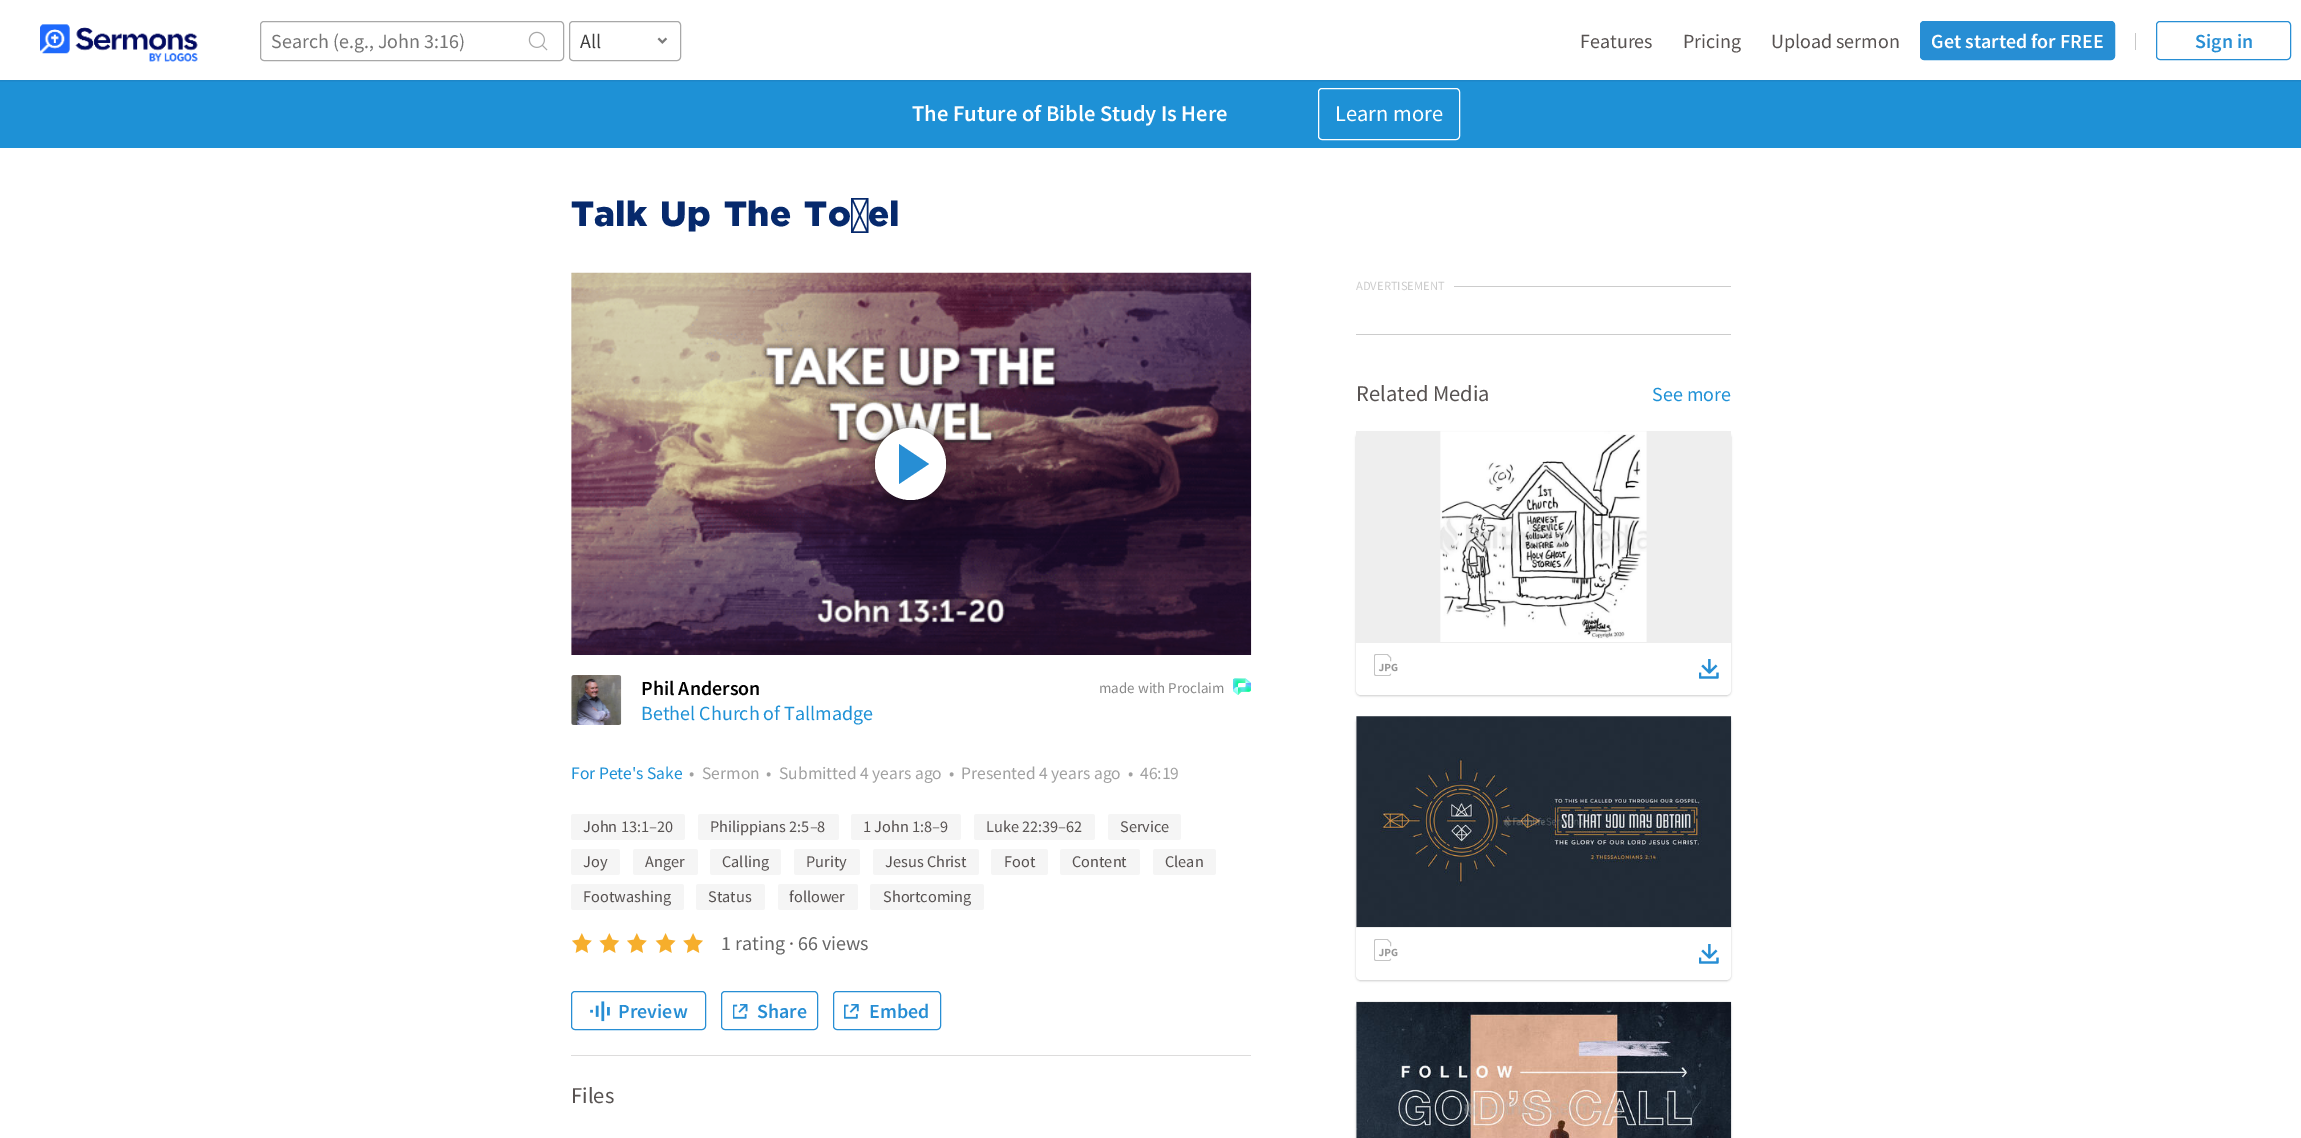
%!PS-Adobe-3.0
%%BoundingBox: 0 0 2301 1138
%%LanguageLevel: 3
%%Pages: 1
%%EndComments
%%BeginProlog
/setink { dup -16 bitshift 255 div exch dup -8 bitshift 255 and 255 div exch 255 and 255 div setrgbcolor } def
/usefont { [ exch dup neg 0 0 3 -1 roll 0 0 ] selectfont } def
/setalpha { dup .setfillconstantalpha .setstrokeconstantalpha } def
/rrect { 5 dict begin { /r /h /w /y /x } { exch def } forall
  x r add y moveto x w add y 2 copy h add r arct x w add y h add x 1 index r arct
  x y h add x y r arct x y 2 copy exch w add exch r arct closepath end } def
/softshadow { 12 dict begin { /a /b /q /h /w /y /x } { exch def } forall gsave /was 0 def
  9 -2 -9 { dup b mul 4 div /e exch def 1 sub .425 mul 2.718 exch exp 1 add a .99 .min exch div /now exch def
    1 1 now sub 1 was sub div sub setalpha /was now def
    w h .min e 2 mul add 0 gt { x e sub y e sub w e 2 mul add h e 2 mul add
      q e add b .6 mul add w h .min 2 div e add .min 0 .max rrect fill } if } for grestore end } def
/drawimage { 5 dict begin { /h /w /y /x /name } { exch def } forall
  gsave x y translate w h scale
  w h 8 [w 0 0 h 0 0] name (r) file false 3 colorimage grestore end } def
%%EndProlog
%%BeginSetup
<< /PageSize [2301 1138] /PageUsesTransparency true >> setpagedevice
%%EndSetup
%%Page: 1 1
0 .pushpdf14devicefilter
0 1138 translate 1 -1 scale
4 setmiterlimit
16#FFFFFF setink
0 0 2301 1138 rectfill
16#1E91D6 setink
0 80 2301 68 rectfill
gsave
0 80 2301 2 rectclip
16#000000 setink
0 1 2301 80 0 1 0.1 softshadow
grestore
(img1.raw) 40 24 158 38 drawimage
16#A8A8A8 setink
260.5 21.5 303 39 3.5 rrect stroke
/SourceSansPro-Regular 20 usefont
16#757575 setink
271 48 moveto (Search \(e.g., John 3:16\)) show
(img2.raw) 528 31 20 20 drawimage
16#A8A8A8 setink
569.5 21.5 111 39 3.5 rrect stroke
16#3D3D3D setink
580 48 moveto (All) show
(img3.raw) 657 37 11 7 drawimage
16#575251 setink
[
    [(Features) 1580 48]
    [(Pricing) 1683 48]
    [(Upload sermon) 1771 48]
] { aload pop moveto show } forall
16#278ED4 setink
1920.5 21.5 194 38 3.5 rrect gsave fill grestore
stroke
/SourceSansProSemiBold-SemiBold 20 usefont
16#FFFFFF setink
1931 48 moveto (Get started for FREE) show
16#C7C7C7 setink
2135 33 1 17 rectfill
16#278ED4 setink
2156.5 21.5 134 38 3.5 rrect stroke
2195 48 moveto (Sign in) show
/SourceSansProSemiBold-SemiBold 22.5 usefont
16#FFFFFF setink
912 121 moveto (The Future of Bible Study Is Here) show
1318.5 88.5 141 51 3.5 rrect stroke
/SourceSansPro-Regular 22.5 usefont
1335 121 moveto (Learn more) show
/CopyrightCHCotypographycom-Regular 35 usefont
16#06296C setink
571 226 moveto 4 0 32 (Talk Up The Towel) widthshow
16#CCCCCC setink
1356 334 375 1 rectfill
/SourceSansPro-Regular 12.5 usefont
1356 290 moveto (ADVERTISEMENT) show
1454 286 277 1 rectfill
/SourceSansPro-Regular 22.5 usefont
16#575251 setink
1356 401 moveto (Related Media) show
/SourceSansPro-Regular 20 usefont
16#1E91D6 setink
1652 401 moveto (See more) show
16#000000 setink
1356 433 375 263 5 1 0.2 softshadow
16#FFFFFF setink
1356 431 moveto 1731 431 lineto 1731 690 lineto 1731 693 1729 695 1726 695 curveto 1361 695 lineto 1358 695 1356 693 1356 690 curveto closepath fill
16#EEEEEE setink
1356 431 375 212 rectfill
(img4.raw) 1440 431 207 211 drawimage
(img5.raw) 1374 654 24 22 drawimage
(img6.raw) 1699 659 20 20 drawimage
16#000000 setink
1356 718 375 263 5 1 0.2 softshadow
16#FFFFFF setink
1356 716 moveto 1731 716 lineto 1731 975 lineto 1731 978 1729 980 1726 980 curveto 1361 980 lineto 1358 980 1356 978 1356 975 curveto closepath fill
16#EEEEEE setink
1356 716 375 212 rectfill
(img7.raw) 1356 716 376 211 drawimage
(img5.raw) 1374 939 24 22 drawimage
(img6.raw) 1699 944 20 20 drawimage
16#000000 setink
1356 1003 375 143 5 1 0.2 softshadow
16#EEEEEE setink
1356 1001 375 137 rectfill
(img8.raw) 1356 1002 376 136 drawimage
571 273 1 382 rectfill
(img9.raw) 571 272 681 383 drawimage
16#000000 setink
875 428 71 72 35.5 5 0.5 softshadow
16#FFFFFF setink
875 428 71 72 35.5 rrect fill
16#278ED4 setink
929 464 moveto 899 484 lineto 899 444 lineto closepath fill
(img10.raw) 571 675 51 50 drawimage
/SourceSansProSemiBold-SemiBold 20 usefont
16#000000 setink
641 695 moveto (Phil Anderson) show
/SourceSansPro-Regular 20 usefont
16#1E91D6 setink
641 720 moveto (Bethel Church of Tallmadge) show
/SourceSansPro-Regular 15 usefont
16#888888 setink
1099 693 moveto (made with Proclaim) show
(img11.raw) 1233 678 18 17 drawimage
/SourceSansPro-Regular 17.5 usefont
16#1E91D6 setink
571 779 moveto (For Pete's Sake) show
16#A1A1A1 setink
[
    [(•) 689 779]
    [(Sermon) 702 779]
    [(•) 766 779]
    [(Submitted 4 years ago) 779 779]
    [(•) 949 779]
    [(Presented 4 years ago) 961 779]
    [(•) 1128 779]
    [(46:19) 1140 779]
] { aload pop moveto show } forall
16#F5F5F5 setink
571 814 114 26 2.5 rrect fill
/SourceSansPro-Regular 16.25 usefont
16#575251 setink
583 832 moveto (John 13:1–20) show
16#F5F5F5 setink
698 814 141 26 2.5 rrect fill
16#575251 setink
710 832 moveto (Philippians 2:5–8) show
16#F5F5F5 setink
851 814 110 26 2.5 rrect fill
16#575251 setink
863 832 moveto (1 John 1:8–9) show
16#F5F5F5 setink
974 814 121 26 2.5 rrect fill
16#575251 setink
986 832 moveto (Luke 22:39–62) show
16#F5F5F5 setink
1108 814 73 26 2.5 rrect fill
16#575251 setink
1120 832 moveto (Service) show
16#F5F5F5 setink
571 849 49 26 2.5 rrect fill
16#575251 setink
583 867 moveto (Joy) show
16#F5F5F5 setink
633 849 65 26 2.5 rrect fill
16#575251 setink
645 867 moveto (Anger) show
16#F5F5F5 setink
710 849 71 26 2.5 rrect fill
16#575251 setink
722 867 moveto (Calling) show
16#F5F5F5 setink
794 849 66 26 2.5 rrect fill
16#575251 setink
806 867 moveto (Purity) show
16#F5F5F5 setink
873 849 106 26 2.5 rrect fill
16#575251 setink
885 867 moveto (Jesus Christ) show
16#F5F5F5 setink
991 849 57 26 2.5 rrect fill
16#575251 setink
1004 867 moveto (Foot) show
16#F5F5F5 setink
1060 849 80 26 2.5 rrect fill
16#575251 setink
1072 867 moveto (Content) show
16#F5F5F5 setink
1153 849 63 26 2.5 rrect fill
16#575251 setink
1165 867 moveto (Clean) show
16#F5F5F5 setink
571 884 113 26 2.5 rrect fill
16#575251 setink
583 902 moveto (Footwashing) show
16#F5F5F5 setink
696 884 69 26 2.5 rrect fill
16#575251 setink
708 902 moveto (Status) show
16#F5F5F5 setink
778 884 80 26 2.5 rrect fill
16#575251 setink
789 902 moveto (follower) show
16#F5F5F5 setink
870 884 114 26 2.5 rrect fill
16#575251 setink
883 902 moveto (Shortcoming) show
(img12.raw) 572 933 20 20 drawimage
(img13.raw) 599 933 21 20 drawimage
(img12.raw) 627 933 20 20 drawimage
(img14.raw) 655 933 21 20 drawimage
(img15.raw) 683 933 20 20 drawimage
/SourceSansPro-Regular 20 usefont
16#666666 setink
721 950 moveto (1 rating) show
16#575251 setink
789 950 moveto (·) show
16#666666 setink
798 950 moveto (66 views) show
16#278ED4 setink
571.5 991.5 134 38 3.5 rrect stroke
(img16.raw) 590 1001 20 21 drawimage
/SourceSansProSemiBold-SemiBold 20 usefont
618 1018 moveto (Preview) show
721.5 991.5 96 38 3.5 rrect stroke
(img17.raw) 733 1004 15 15 drawimage
757 1018 moveto (Share) show
833.5 991.5 107 38 3.5 rrect stroke
(img18.raw) 844 1004 15 15 drawimage
869 1018 moveto (Embed) show
16#DDDCDC setink
571 1055 680 1 rectfill
/SourceSansPro-Regular 22.5 usefont
16#575251 setink
571 1103 moveto (Files) show
.poppdf14devicefilter showpage
%%EOF
